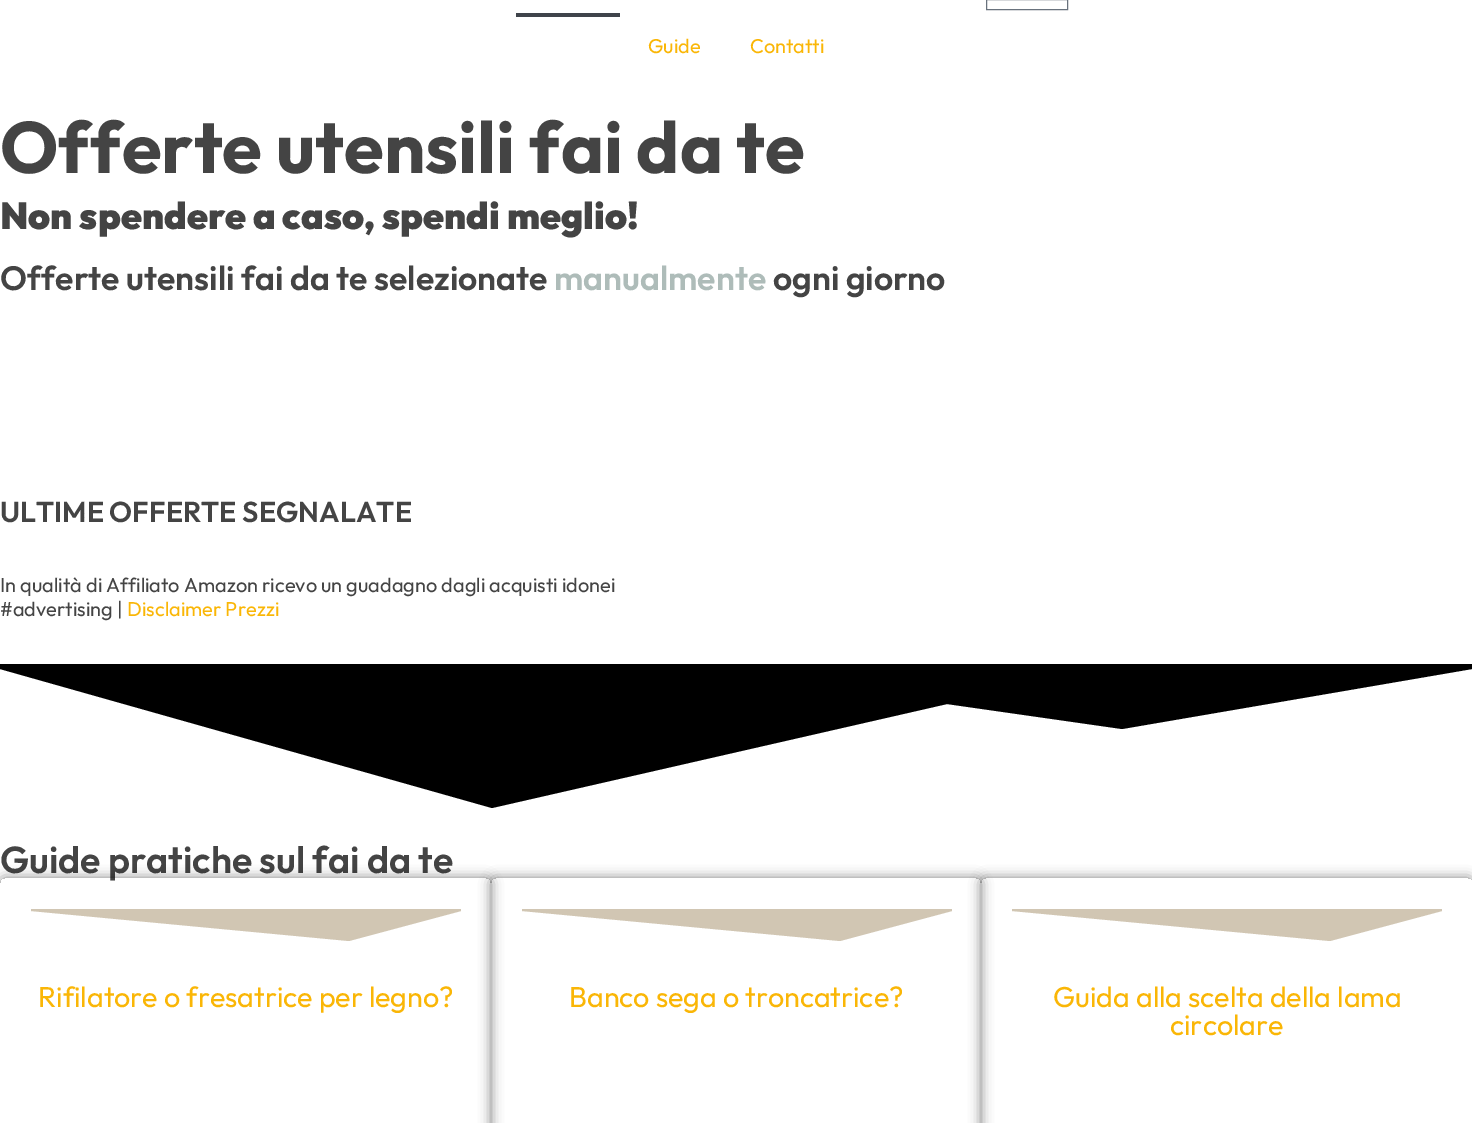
%!PS-Adobe-3.0
%%BoundingBox: 0 0 1472 1123
%%LanguageLevel: 3
%%Pages: 1
%%EndComments
%%BeginProlog
/setink { dup -16 bitshift 255 div exch dup -8 bitshift 255 and 255 div exch 255 and 255 div setrgbcolor } def
/usefont { [ exch dup neg 0 0 3 -1 roll 0 0 ] selectfont } def
/setalpha { dup .setfillconstantalpha .setstrokeconstantalpha } def
/rrect { 5 dict begin { /r /h /w /y /x } { exch def } forall
  x r add y moveto x w add y 2 copy h add r arct x w add y h add x 1 index r arct
  x y h add x y r arct x y 2 copy exch w add exch r arct closepath end } def
/softshadow { 12 dict begin { /a /b /q /h /w /y /x } { exch def } forall gsave /was 0 def
  9 -2 -9 { dup b mul 4 div /e exch def 1 sub .425 mul 2.718 exch exp 1 add a .99 .min exch div /now exch def
    1 1 now sub 1 was sub div sub setalpha /was now def
    w h .min e 2 mul add 0 gt { x e sub y e sub w e 2 mul add h e 2 mul add
      q e add b .6 mul add w h .min 2 div e add .min 0 .max rrect fill } if } for grestore end } def
%%EndProlog
%%BeginSetup
<< /PageSize [1472 1123] /PageUsesTransparency true >> setpagedevice
%%EndSetup
%%Page: 1 1
0 .pushpdf14devicefilter
0 1123 translate 1 -1 scale
4 setmiterlimit
16#FFFFFF setink
0 0 1472 1123 rectfill
16#69727D setink
986.5 -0.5 81 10 rectstroke
16#3F444B setink
516 13 104 4 rectfill
/Outfit-Regular 20 usefont
16#FAB606 setink
648 53 moveto (Guide) show
750 53 moveto (Contatti) show
/Outfit-Bold 72.5 usefont
16#444444 setink
0 173 moveto (Offerte utensili fai da te) show
/Outfit-Black 37.5 usefont
0 229 moveto (Non spendere a caso, spendi meglio!) show
/Outfit-SemiBold 33.75 usefont
0 290 moveto (Offerte utensili fai da te selezionate) show
16#AEBCB9 setink
554 290 moveto (manualmente) show
16#444444 setink
773 290 moveto (ogni giorno) show
/Outfit-SemiBold 28.75 usefont
0 522 moveto (ULTIME OFFERTE SEGNALATE) show
/Outfit-Regular 20 usefont
0 592 moveto (In qualità di Affiliato Amazon ricevo un guadagno dagli acquisti idonei) show
0 616 moveto (#advertising |) show
16#FAB606 setink
127 616 moveto (Disclaimer Prezzi) show
16#000000 setink
1122 729 moveto 947 704 lineto 492 808 lineto 0 669 lineto 0 664 lineto 1472 664 lineto 1472 669 lineto fill
/Outfit-SemiBold 37.5 usefont
16#444444 setink
0 873 moveto (Guide pratiche sul fai da te) show
gsave
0 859 moveto 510 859 lineto 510 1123 lineto 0 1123 lineto closepath 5 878 moveto 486 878 lineto 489 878 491 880 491 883 curveto 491 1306 lineto 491 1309 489 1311 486 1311 curveto 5 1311 lineto 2 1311 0 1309 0 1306 curveto 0 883 lineto 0 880 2 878 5 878 curveto closepath eoclip newpath
16#000000 setink
0 878 491 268 5 6 0.5 softshadow
grestore
16#D1C6B3 setink
349 941 moveto 461 911 lineto 461 909 lineto 31 909 lineto 31 911 lineto closepath fill
/Outfit-Regular 28.75 usefont
16#FAB606 setink
38 1007 moveto (Rifilatore o fresatrice per legno?) show
gsave
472 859 moveto 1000 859 lineto 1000 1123 lineto 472 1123 lineto closepath 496 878 moveto 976 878 lineto 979 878 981 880 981 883 curveto 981 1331 lineto 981 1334 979 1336 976 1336 curveto 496 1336 lineto 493 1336 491 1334 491 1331 curveto 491 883 lineto 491 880 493 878 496 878 curveto closepath eoclip newpath
16#000000 setink
491 878 490 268 5 6 0.5 softshadow
grestore
16#D1C6B3 setink
840 941 moveto 952 911 lineto 952 909 lineto 522 909 lineto 522 911 lineto closepath fill
16#FAB606 setink
569 1007 moveto (Banco sega o troncatrice?) show
gsave
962 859 moveto 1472 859 lineto 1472 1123 lineto 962 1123 lineto closepath 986 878 moveto 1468 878 lineto 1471 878 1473 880 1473 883 curveto 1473 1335 lineto 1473 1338 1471 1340 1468 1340 curveto 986 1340 lineto 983 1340 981 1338 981 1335 curveto 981 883 lineto 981 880 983 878 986 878 curveto closepath eoclip newpath
16#000000 setink
981 878 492 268 5 6 0.5 softshadow
grestore
16#D1C6B3 setink
1330 941 moveto 1442 911 lineto 1442 909 lineto 1012 909 lineto 1012 911 lineto closepath fill
16#FAB606 setink
1053 1007 moveto (Guida alla scelta della lama) show
1170 1035 moveto (circolare) show
.poppdf14devicefilter showpage
%%EOF
